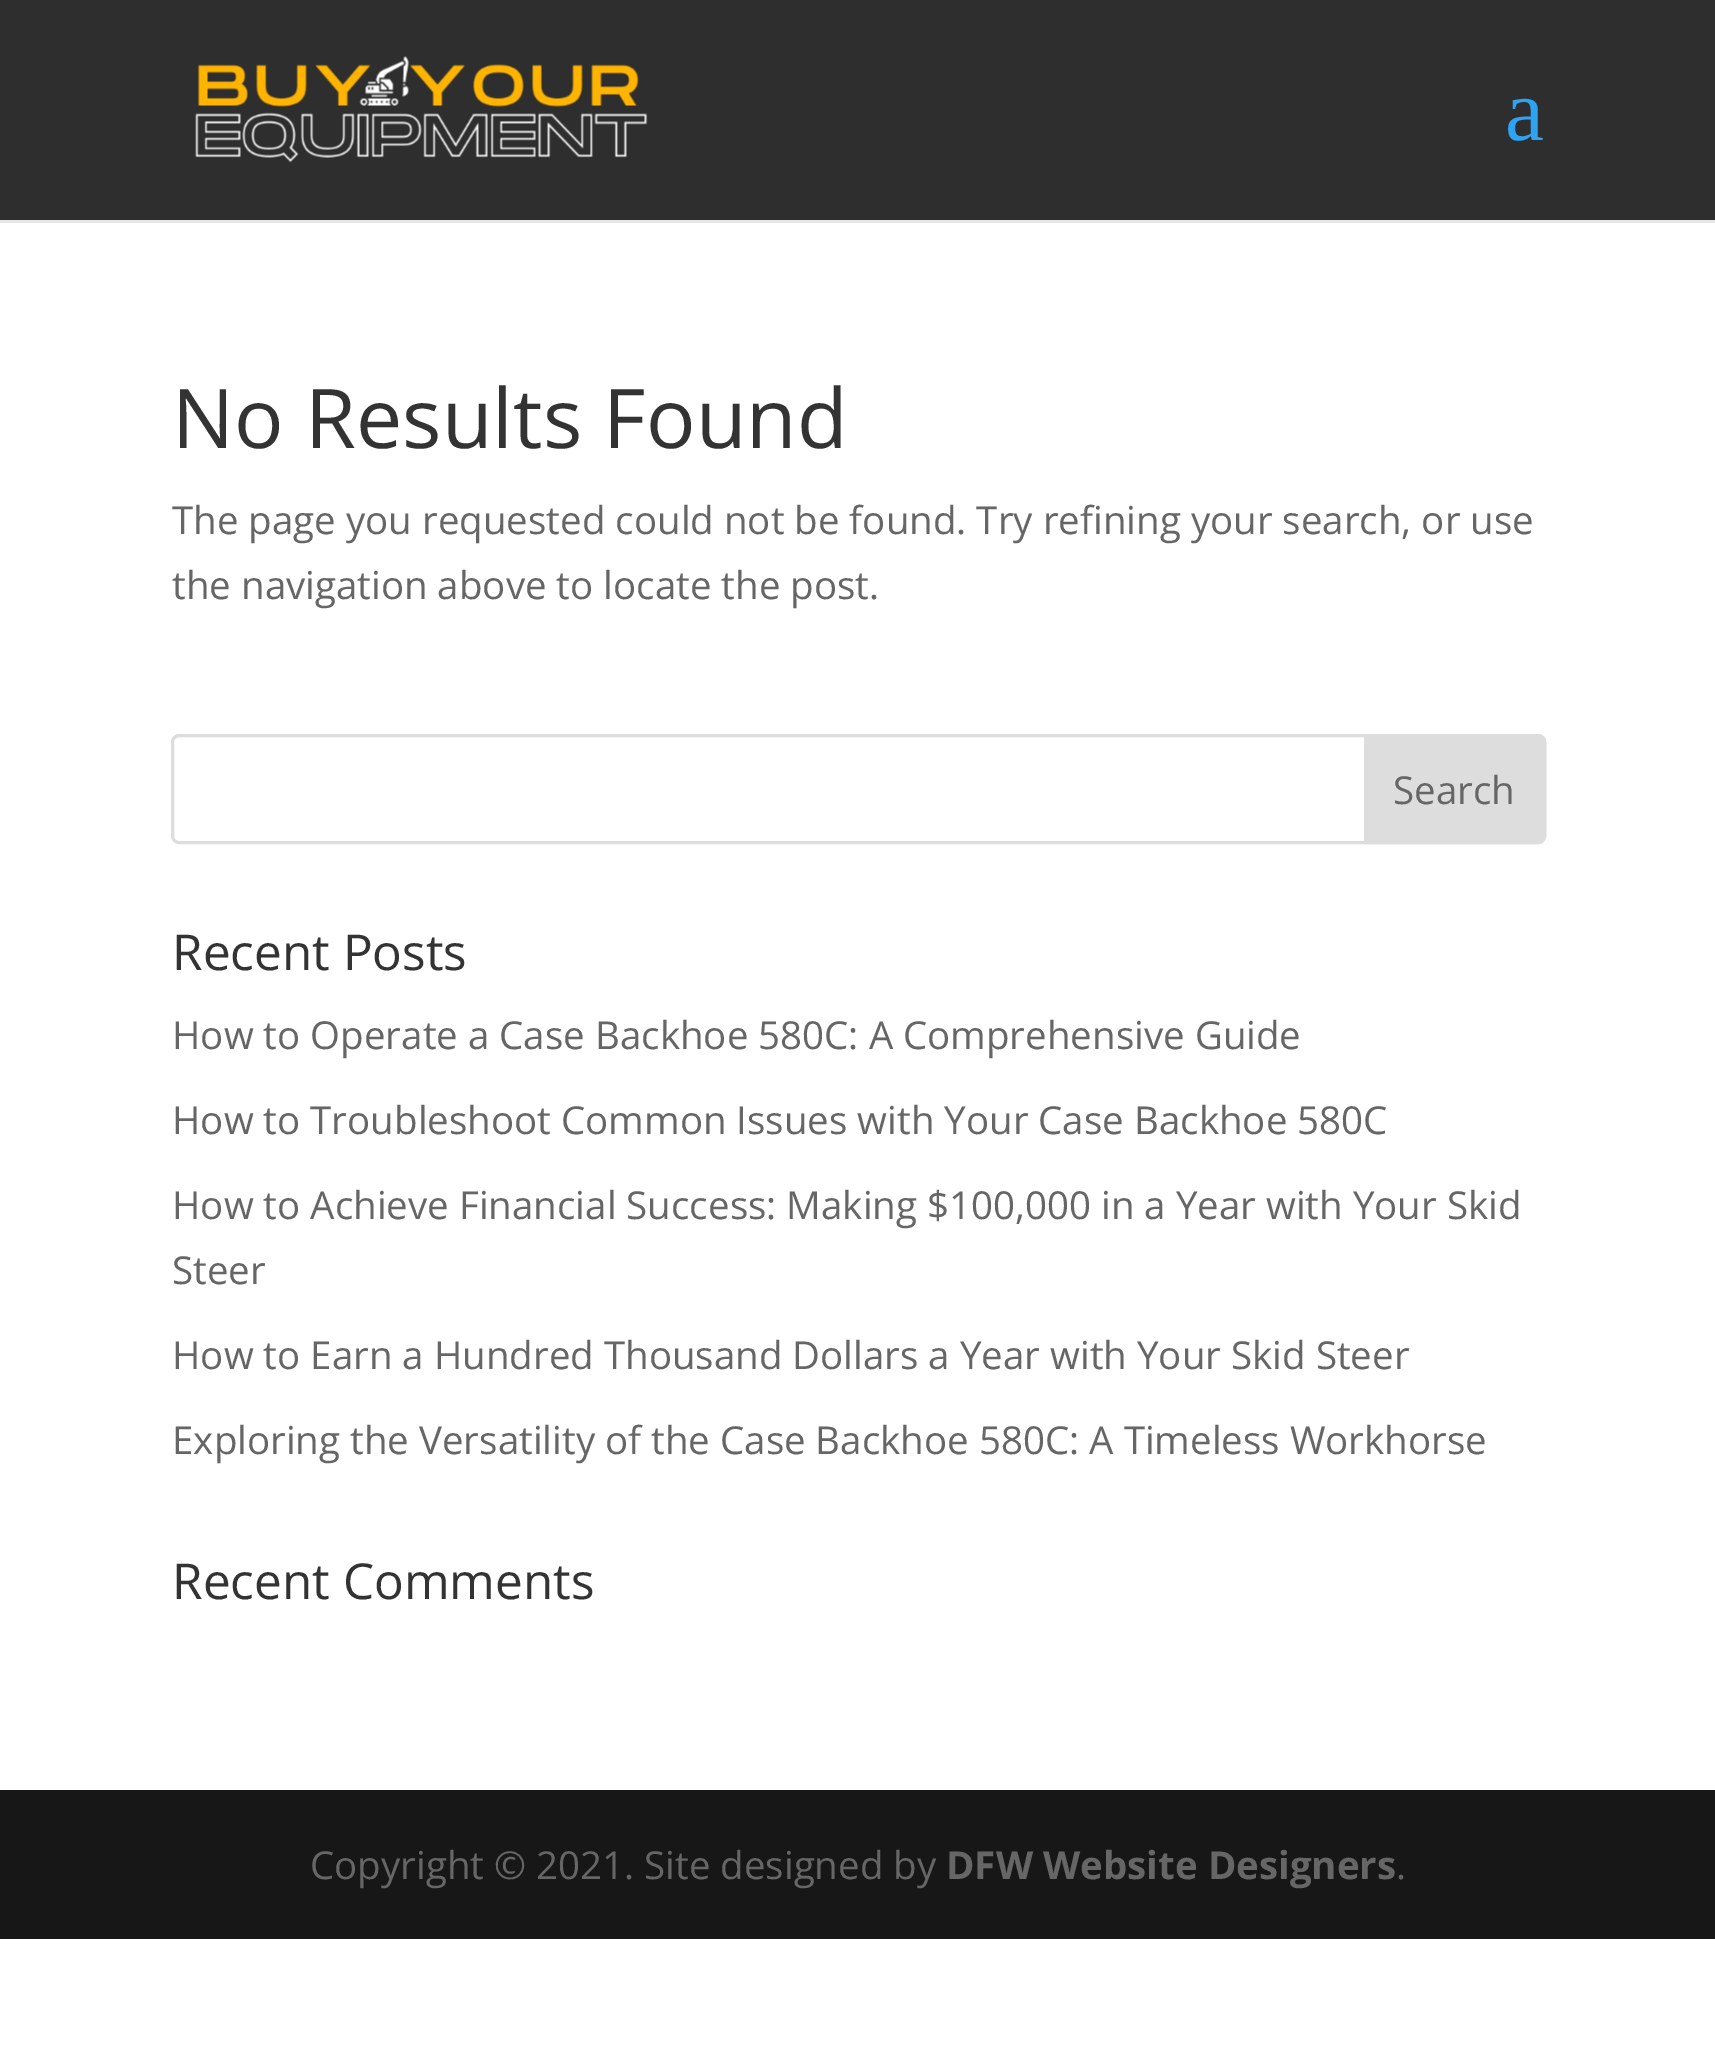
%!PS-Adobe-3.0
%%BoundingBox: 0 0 1715 2050
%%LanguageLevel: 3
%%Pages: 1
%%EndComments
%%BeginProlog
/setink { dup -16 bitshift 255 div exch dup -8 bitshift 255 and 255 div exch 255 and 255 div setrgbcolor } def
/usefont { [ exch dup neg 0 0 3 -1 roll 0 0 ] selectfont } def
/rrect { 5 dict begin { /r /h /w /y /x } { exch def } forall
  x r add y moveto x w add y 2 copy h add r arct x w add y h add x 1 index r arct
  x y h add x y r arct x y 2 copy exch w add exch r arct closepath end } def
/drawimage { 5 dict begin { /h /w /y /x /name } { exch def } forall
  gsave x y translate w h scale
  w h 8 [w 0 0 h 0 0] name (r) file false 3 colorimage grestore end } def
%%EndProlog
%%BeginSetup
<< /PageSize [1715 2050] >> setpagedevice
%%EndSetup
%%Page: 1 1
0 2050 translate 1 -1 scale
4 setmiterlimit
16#FFFFFF setink
0 0 1715 2050 rectfill
16#E6E6E6 setink
0 220 1715 3 rectfill
16#2E2E2E setink
0 0 1715 220 rectfill
(img1.raw) 195 56 453 107 drawimage
/LiberationSerif-Regular 88 usefont
16#2EA3F2 setink
1505 140 moveto (a) show
/OpenSans-Regular 82.5 usefont
16#333333 setink
172 448 moveto (No Results Found) show
/OpenSans-Regular 38.5 usefont
16#666666 setink
172 534 moveto (The page you requested could not be found. Try refining your search, or use) show
172 599 moveto (the navigation above to locate the post.) show
16#DDDDDD setink
3 setlinewidth
172.5 735.5 1372 107 6.5 rrect stroke
1365.5 735.5 moveto 1538 735.5 lineto 1541.5 735.5 1544.5 738.5 1544.5 742 curveto 1544.5 836 lineto 1544.5 839.5 1541.5 842.5 1538 842.5 curveto 1365.5 842.5 lineto closepath gsave fill grestore
stroke
16#666666 setink
1393 804 moveto (Search) show
/OpenSans-Regular 49.5 usefont
16#333333 setink
172 970 moveto (Recent Posts) show
/OpenSans-Regular 38.5 usefont
16#666666 setink
[
    [(How to Operate a Case Backhoe 580C: A Comprehensive Guide) 172 1049]
    [(How to Troubleshoot Common Issues with Your Case Backhoe 580C) 172 1134]
    [(How to Achieve Financial Success: Making $100,000 in a Year with Your Skid) 172 1219]
    [(Steer) 172 1284]
    [(How to Earn a Hundred Thousand Dollars a Year with Your Skid Steer) 172 1369]
    [(Exploring the Versatility of the Case Backhoe 580C: A Timeless Workhorse) 172 1454]
] { aload pop moveto show } forall
/OpenSans-Regular 49.5 usefont
16#333333 setink
172 1599 moveto (Recent Comments) show
16#171717 setink
0 1790 1715 149 rectfill
/OpenSans-Regular 38.5 usefont
16#666666 setink
310 1879 moveto (Copyright © 2021. Site designed by) show
/OpenSans-Bold 38.5 usefont
946 1879 moveto (DFW Website Designers) show
/OpenSans-Regular 38.5 usefont
1396 1879 moveto (.) show
showpage
%%EOF
